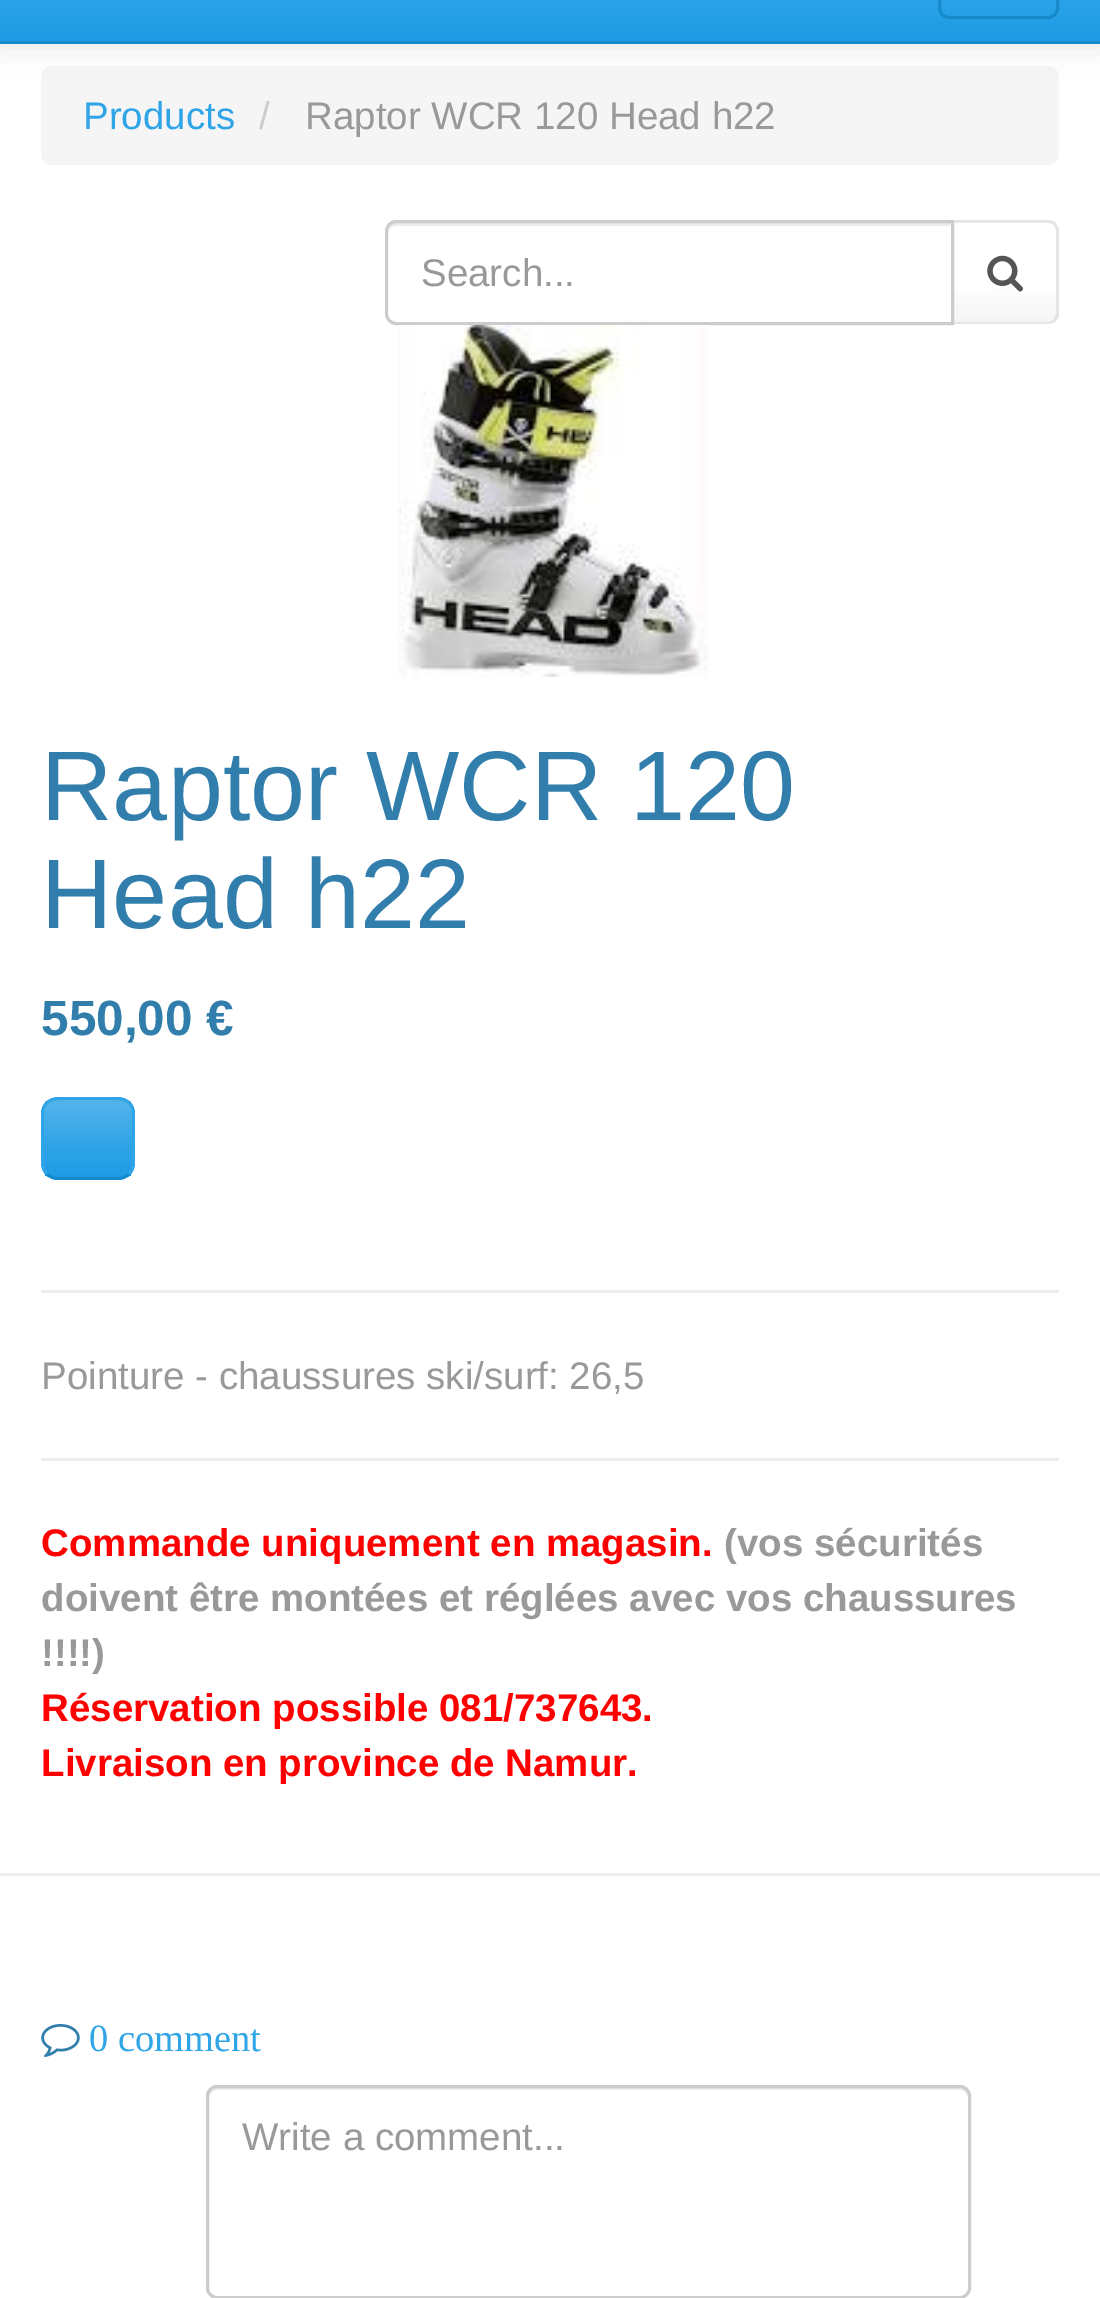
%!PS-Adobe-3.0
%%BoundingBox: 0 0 1100 2298
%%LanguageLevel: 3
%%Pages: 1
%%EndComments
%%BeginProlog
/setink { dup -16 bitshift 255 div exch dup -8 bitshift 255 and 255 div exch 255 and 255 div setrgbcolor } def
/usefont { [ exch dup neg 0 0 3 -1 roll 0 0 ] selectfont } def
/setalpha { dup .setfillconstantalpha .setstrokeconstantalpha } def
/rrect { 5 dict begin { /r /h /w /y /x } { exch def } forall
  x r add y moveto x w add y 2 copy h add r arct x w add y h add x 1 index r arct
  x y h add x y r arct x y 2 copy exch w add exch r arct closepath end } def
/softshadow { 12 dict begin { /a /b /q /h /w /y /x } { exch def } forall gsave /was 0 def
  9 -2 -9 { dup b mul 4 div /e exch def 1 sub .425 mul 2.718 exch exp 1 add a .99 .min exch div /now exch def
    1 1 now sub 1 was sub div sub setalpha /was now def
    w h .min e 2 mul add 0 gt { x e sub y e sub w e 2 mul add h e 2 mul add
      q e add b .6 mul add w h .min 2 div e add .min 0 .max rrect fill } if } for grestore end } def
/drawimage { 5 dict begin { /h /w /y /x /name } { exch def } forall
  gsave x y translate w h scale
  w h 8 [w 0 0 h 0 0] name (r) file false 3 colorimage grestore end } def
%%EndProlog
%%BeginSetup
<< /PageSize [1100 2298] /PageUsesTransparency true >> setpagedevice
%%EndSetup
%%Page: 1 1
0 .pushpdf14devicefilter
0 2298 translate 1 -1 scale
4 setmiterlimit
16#FFFFFF setink
0 0 1100 2298 rectfill
16#F5F5F5 setink
41 66 1018 99 11 rrect fill
16#000000 setink
0 -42 1100 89 0 14 0.1 softshadow
gsave 0 0 moveto 1100 0 lineto 1100 41 lineto 0 41 lineto closepath clip newpath
<< /ShadingType 2 /ColorSpace /DeviceRGB /Coords [550 -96 550 41] /Extend [true true] /Function << /FunctionType 3 /Domain [0 1] /Functions [<< /FunctionType 2 /Domain [0 1] /C0 [0.329 0.706 0.922] /C1 [0.184 0.643 0.906] /N 1 >> << /FunctionType 2 /Domain [0 1] /C0 [0.184 0.643 0.906] /C1 [0.114 0.612 0.898] /N 1 >>] /Bounds [0.6] /Encode [0 1 0 1] >> >> shfill grestore
16#178ACC setink
0 41 1100 3 rectfill
3 setlinewidth
939.5 -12.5 118 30 9.5 rrect stroke
/LiberationSans-Regular 38.5 usefont
16#2FA4E7 setink
83 129 moveto (Products) show
16#CCCCCC setink
259 129 moveto (/) show
16#999999 setink
305 129 moveto (Raptor WCR 120 Head h22) show
16#E6E6E6 setink
952 220 moveto 954 223 lineto 1048 223 lineto 1050 223 1052 224 1054 225 curveto 1056 223 lineto 1054 221 1051 220 1048 220 curveto closepath fill
gsave 954 292 moveto 1056 292 lineto 1056 322 lineto 954 322 lineto closepath clip newpath
<< /ShadingType 2 /ColorSpace /DeviceRGB /Coords [1005 223 1005 322] /Extend [true true] /Function << /FunctionType 3 /Domain [0 1] /Functions [<< /FunctionType 2 /Domain [0 1] /C0 [1 1 1] /C1 [1 1 1] /N 1 >> << /FunctionType 2 /Domain [0 1] /C0 [1 1 1] /C1 [0.961 0.961 0.961] /N 1 >>] /Bounds [0.6] /Encode [0 1 0 1] >> >> shfill grestore
0.1 setalpha
16#000000 setink
1059 316 moveto 1058 318 1057 320 1056 321 curveto 1054 319 lineto 1055 318 1056 316 1056 314 curveto 1056 231 lineto 1056 229 1055 227 1054 225 curveto 1056 223 lineto 1057 225 1058 227 1059 229 curveto closepath fill
1 setalpha
16#E6E6E6 setink
1056 321 moveto 1054 323 1051 324 1048 324 curveto 952 324 lineto 954 322 lineto 1050 322 lineto 1054 319 lineto closepath fill
16#FFFFFF setink
396 220 moveto 954 220 lineto 954 325 lineto 396 325 lineto 390 325 385 320 385 314 curveto 385 231 lineto 385 225 390 220 396 220 curveto closepath fill
16#ECECEC setink
396 226 moveto 952 226 lineto 952 223 lineto 396 223 lineto 390 223 388 229 388 234 curveto 388 229 391 226 396 226 curveto closepath fill
16#CCCCCC setink
396 221.5 moveto 952.5 221.5 lineto 952.5 323.5 lineto 396 323.5 lineto 391 323.5 386.5 319 386.5 314 curveto 386.5 231 lineto 386.5 226 391 221.5 396 221.5 curveto closepath stroke
16#999999 setink
421 286 moveto (Search...) show
(img1.raw) 987 255 36 37 drawimage
(img2.raw) 398 325 310 352 drawimage
/LiberationSans-Regular 99 usefont
16#317EAC setink
41 820 moveto (Raptor WCR 120) show
41 928 moveto (Head h22) show
/LiberationSans-Bold 49.5 usefont
41 1035 moveto (550,00 €) show
16#2FA4E7 setink
41 1097 94 83 17 rrect fill
gsave
41 1097 94 83 17 rrect clip newpath
gsave 44 1100 moveto 132 1100 lineto 132 1177 lineto 44 1177 lineto closepath clip newpath
<< /ShadingType 2 /ColorSpace /DeviceRGB /Coords [88 1100 88 1177] /Extend [true true] /Function << /FunctionType 3 /Domain [0 1] /Functions [<< /FunctionType 2 /Domain [0 1] /C0 [0.329 0.706 0.922] /C1 [0.184 0.643 0.906] /N 1 >> << /FunctionType 2 /Domain [0 1] /C0 [0.184 0.643 0.906] /C1 [0.114 0.612 0.898] /N 1 >>] /Bounds [0.6] /Encode [0 1 0 1] >> >> shfill grestore
grestore
16#178ACC setink
2.8 setlinewidth
129 1174 moveto 126 1177 122.5 1178.5 118 1178.5 curveto 58 1178.5 lineto 53.5 1178.5 50 1177 47 1174 curveto stroke
16#2FA4E7 setink
47 1174 moveto 42 1168.5 42.5 1162 42.5 1155 curveto 42.5 1112.5 lineto 44 1098 57 1098.5 68 1098.5 curveto 108 1098.5 lineto 119 1098.5 132 1098 133.5 1112.5 curveto 133.5 1155 lineto 133.5 1162 134 1168.5 129 1174 curveto stroke
16#EEEEEE setink
41 1290 1018 3 rectfill
/LiberationSans-Regular 38.5 usefont
16#999999 setink
41 1389 moveto (Pointure - chaussures ski/surf: 26,5) show
16#EEEEEE setink
41 1458 1018 3 rectfill
/LiberationSans-Bold 38.5 usefont
16#FF0000 setink
41 1556 moveto (Commande uniquement en magasin.) show
16#999999 setink
[
    [(\(vos sécurités) 724 1556]
    [(doivent être montées et réglées avec vos chaussures) 41 1611]
    [(!!!!\)) 41 1666]
] { aload pop moveto show } forall
16#FF0000 setink
41 1721 moveto (Réservation possible 081/737643.) show
41 1776 moveto (Livraison en province de Namur.) show
16#EEEEEE setink
0 1873 1100 3 rectfill
(img3.raw) 41 2024 39 33 drawimage
/LiberationSerif-Regular 38.5 usefont
16#2FA4E7 setink
89 2051 moveto (0 comment) show
16#ECECEC setink
217 2090 moveto 960 2090 lineto 964 2090 968 2094 968 2098 curveto 968 2095 lineto 968 2091 964 2087 960 2087 curveto 217 2087 lineto 213 2087 209 2091 209 2095 curveto 209 2098 lineto 209 2094 213 2090 217 2090 curveto closepath fill
16#CCCCCC setink
3 setlinewidth
207.5 2086.5 762 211 9.5 rrect stroke
/LiberationSans-Regular 38.5 usefont
16#999999 setink
242 2150 moveto (Write a comment...) show
.poppdf14devicefilter showpage
%%EOF
